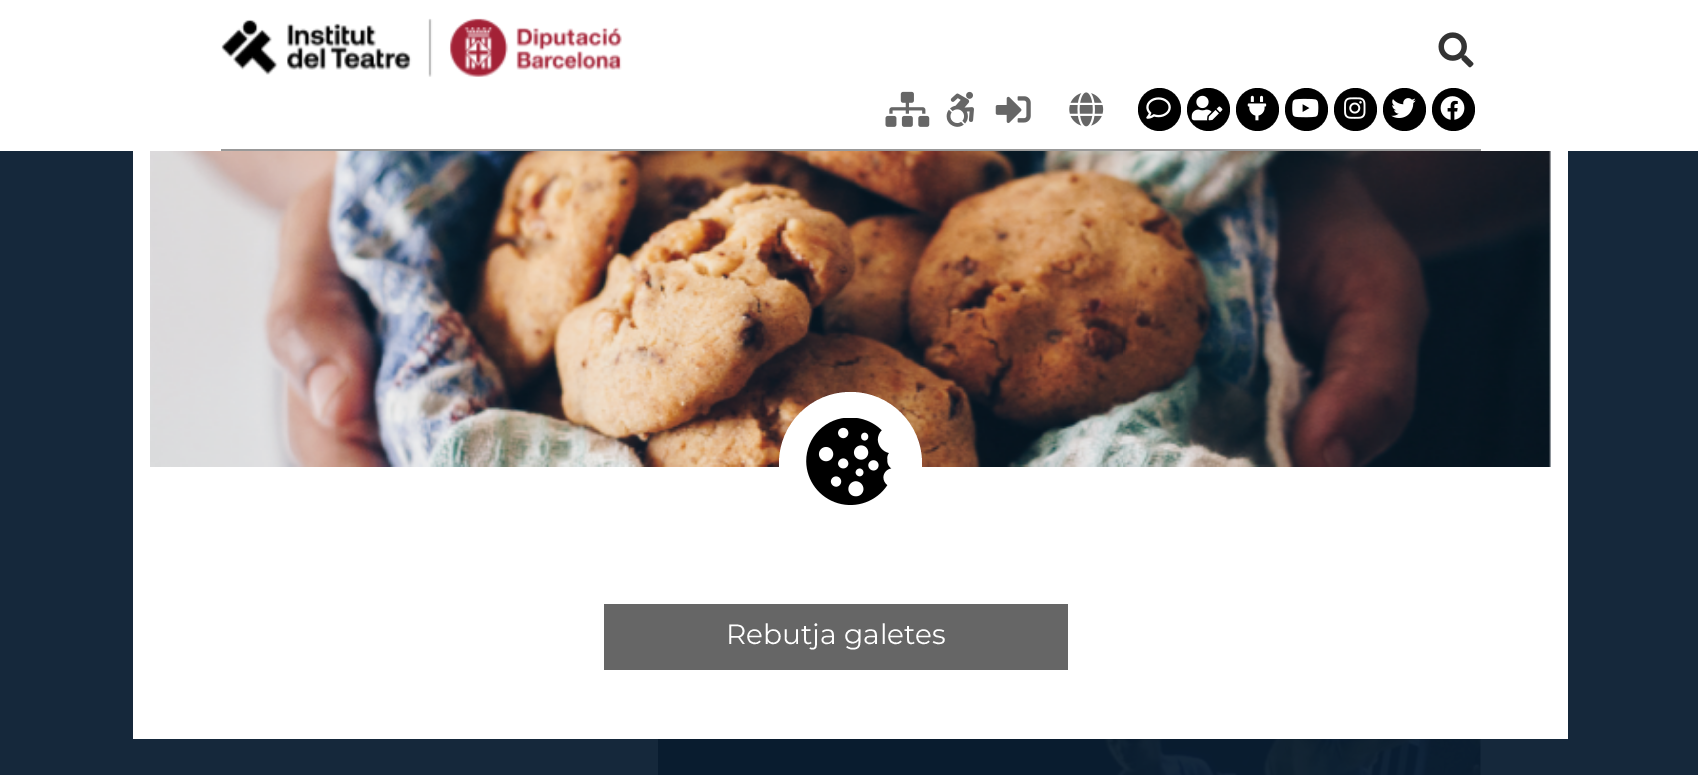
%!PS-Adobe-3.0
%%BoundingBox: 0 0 1698 775
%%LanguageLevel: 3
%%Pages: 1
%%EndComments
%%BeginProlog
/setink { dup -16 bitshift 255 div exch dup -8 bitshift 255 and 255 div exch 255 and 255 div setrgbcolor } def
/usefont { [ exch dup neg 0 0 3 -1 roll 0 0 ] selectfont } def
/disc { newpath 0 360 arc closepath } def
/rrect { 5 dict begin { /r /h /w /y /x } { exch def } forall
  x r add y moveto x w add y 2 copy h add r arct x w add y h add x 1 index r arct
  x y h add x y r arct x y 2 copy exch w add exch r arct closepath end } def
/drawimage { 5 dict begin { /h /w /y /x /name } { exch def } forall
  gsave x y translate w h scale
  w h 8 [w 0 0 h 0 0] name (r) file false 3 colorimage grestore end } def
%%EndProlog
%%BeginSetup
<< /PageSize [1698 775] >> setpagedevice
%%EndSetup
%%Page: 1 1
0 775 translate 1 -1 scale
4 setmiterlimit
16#15283B setink
0 0 1698 775 rectfill
16#FFFFFF setink
0 0 1698 151 rectfill
16#999999 setink
221 149 1260 2 rectfill
(img1.raw) 221 18 401 59 drawimage
(img2.raw) 1438 32 36 36 drawimage
(img3.raw) 885 91 45 36 drawimage
(img4.raw) 946 91 28 36 drawimage
(img5.raw) 995 96 36 27 drawimage
(img6.raw) 1069 92 35 35 drawimage
16#000000 setink
1159.5 109.5 21.5 disc fill
(img7.raw) 1146 97 25 22 drawimage
1208.5 109.5 21.5 disc fill
(img8.raw) 1191 95 32 26 drawimage
1257.5 109.5 21.5 disc fill
(img9.raw) 1247 95 20 26 drawimage
1306.5 109.5 21.5 disc fill
(img10.raw) 1292 98 27 20 drawimage
1355.5 109.5 21.5 disc fill
(img11.raw) 1344 97 22 22 drawimage
1404.5 109.5 21.5 disc fill
(img12.raw) 1391 98 25 20 drawimage
1453.5 109.5 21.5 disc fill
(img13.raw) 1440 96 25 24 drawimage
16#FFFFFF setink
133 151 1435 588 rectfill
(img14.raw) 150 151 1401 316 drawimage
779 392 143 144 71.5 rrect fill
(img15.raw) 806 418 86 87 drawimage
16#666666 setink
604 604 464 66 rectfill
/Montserrat-Regular 28 usefont
16#FFFFFF setink
726 644 moveto (Rebutja galetes) show
(img16.raw) 658 739 823 36 drawimage
showpage
%%EOF
